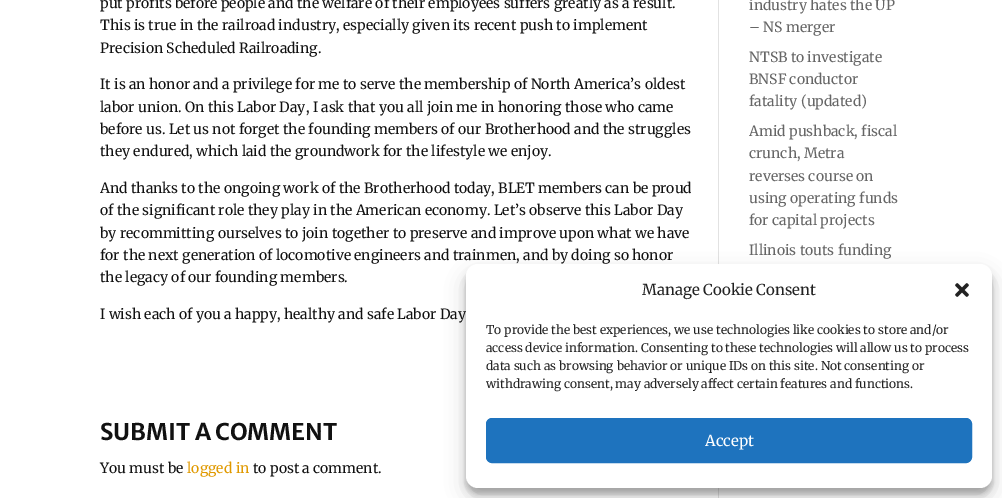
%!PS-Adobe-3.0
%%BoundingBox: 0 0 1002 498
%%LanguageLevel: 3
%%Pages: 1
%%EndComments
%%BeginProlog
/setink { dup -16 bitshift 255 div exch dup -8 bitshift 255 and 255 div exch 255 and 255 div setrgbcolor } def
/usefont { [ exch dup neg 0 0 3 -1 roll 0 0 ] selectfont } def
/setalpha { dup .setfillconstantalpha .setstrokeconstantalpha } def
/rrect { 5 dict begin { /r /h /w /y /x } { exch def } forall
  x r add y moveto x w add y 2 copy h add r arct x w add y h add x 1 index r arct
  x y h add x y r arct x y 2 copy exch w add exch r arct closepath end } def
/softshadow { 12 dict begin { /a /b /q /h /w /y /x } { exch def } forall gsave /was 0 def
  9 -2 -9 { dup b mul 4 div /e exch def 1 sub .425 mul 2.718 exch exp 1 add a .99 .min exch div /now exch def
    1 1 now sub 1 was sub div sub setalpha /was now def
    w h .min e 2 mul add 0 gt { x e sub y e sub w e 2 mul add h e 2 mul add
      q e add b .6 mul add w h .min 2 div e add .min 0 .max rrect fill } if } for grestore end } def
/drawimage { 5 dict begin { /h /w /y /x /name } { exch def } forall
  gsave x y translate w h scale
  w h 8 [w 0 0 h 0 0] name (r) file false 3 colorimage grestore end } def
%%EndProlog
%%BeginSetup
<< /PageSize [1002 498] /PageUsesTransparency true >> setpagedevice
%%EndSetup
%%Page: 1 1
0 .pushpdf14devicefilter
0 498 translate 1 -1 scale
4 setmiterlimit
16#FFFFFF setink
0 0 1002 498 rectfill
/Merriweather-Regular 14 usefont
16#111111 setink
[
    [(put profits before people and the welfare of their employees suffers greatly as a result.) 100 8]
    [(This is true in the railroad industry, especially given its recent push to implement) 100 30]
    [(Precision Scheduled Railroading.) 100 53]
    [(It is an honor and a privilege for me to serve the membership of North America’s oldest) 100 89]
    [(labor union. On this Labor Day, I ask that you all join me in honoring those who came) 100 112]
    [(before us. Let us not forget the founding members of our Brotherhood and the struggles) 100 134]
    [(they endured, which laid the groundwork for the lifestyle we enjoy.) 100 156]
    [(And thanks to the ongoing work of the Brotherhood today, BLET members can be proud) 100 193]
    [(of the significant role they play in the American economy. Let’s observe this Labor Day) 100 215]
    [(by recommitting ourselves to join together to preserve and improve upon what we have) 100 238]
    [(for the next generation of locomotive engineers and trainmen, and by doing so honor) 100 260]
    [(the legacy of our founding members.) 100 282]
    [(I wish each of you a happy, healthy and safe Labor Day) 100 319]
] { aload pop moveto show } forall
/MerriweatherSans-Bold 23 usefont
100 440 moveto (SUBMIT A COMMENT) show
/Merriweather-Regular 14 usefont
100 473 moveto (You must be) show
16#E09900 setink
187 473 moveto (logged in) show
16#111111 setink
253 473 moveto (to post a comment.) show
16#666666 setink
[
    [(industry hates the UP) 749 10]
    [(– NS merger) 749 32]
    [(NTSB to investigate) 749 62]
    [(BNSF conductor) 749 84]
    [(fatality \(updated\)) 749 106]
    [(Amid pushback, fiscal) 749 136]
    [(crunch, Metra) 749 158]
    [(reverses course on) 749 181]
    [(using operating funds) 749 203]
    [(for capital projects) 749 225]
    [(Illinois touts funding) 749 255]
] { aload pop moveto show } forall
16#E2E2E2 setink
718 0 1 498 rectfill
16#000000 setink
466 270 526 224 12 3 0.23 softshadow
466 274 526 224 12 10 0.19 softshadow
16#FFFFFF setink
466 264 526 224 12 rrect fill
/Merriweather-Regular 15 usefont
16#222222 setink
642 295 moveto (Manage Cookie Consent) show
(img1.raw) 955 283 14 14 drawimage
/Merriweather-Regular 12 usefont
[
    [(To provide the best experiences, we use technologies like cookies to store and/or) 486 334]
    [(access device information. Consenting to these technologies will allow us to process) 486 352]
    [(data such as browsing behavior or unique IDs on this site. Not consenting or) 486 370]
    [(withdrawing consent, may adversely affect certain features and functions.) 486 388]
] { aload pop moveto show } forall
16#1E73BE setink
486.5 418.5 485 44 5.5 rrect gsave fill grestore
stroke
/Merriweather-Regular 15 usefont
16#FFFFFF setink
705 446 moveto (Accept) show
.poppdf14devicefilter showpage
%%EOF
